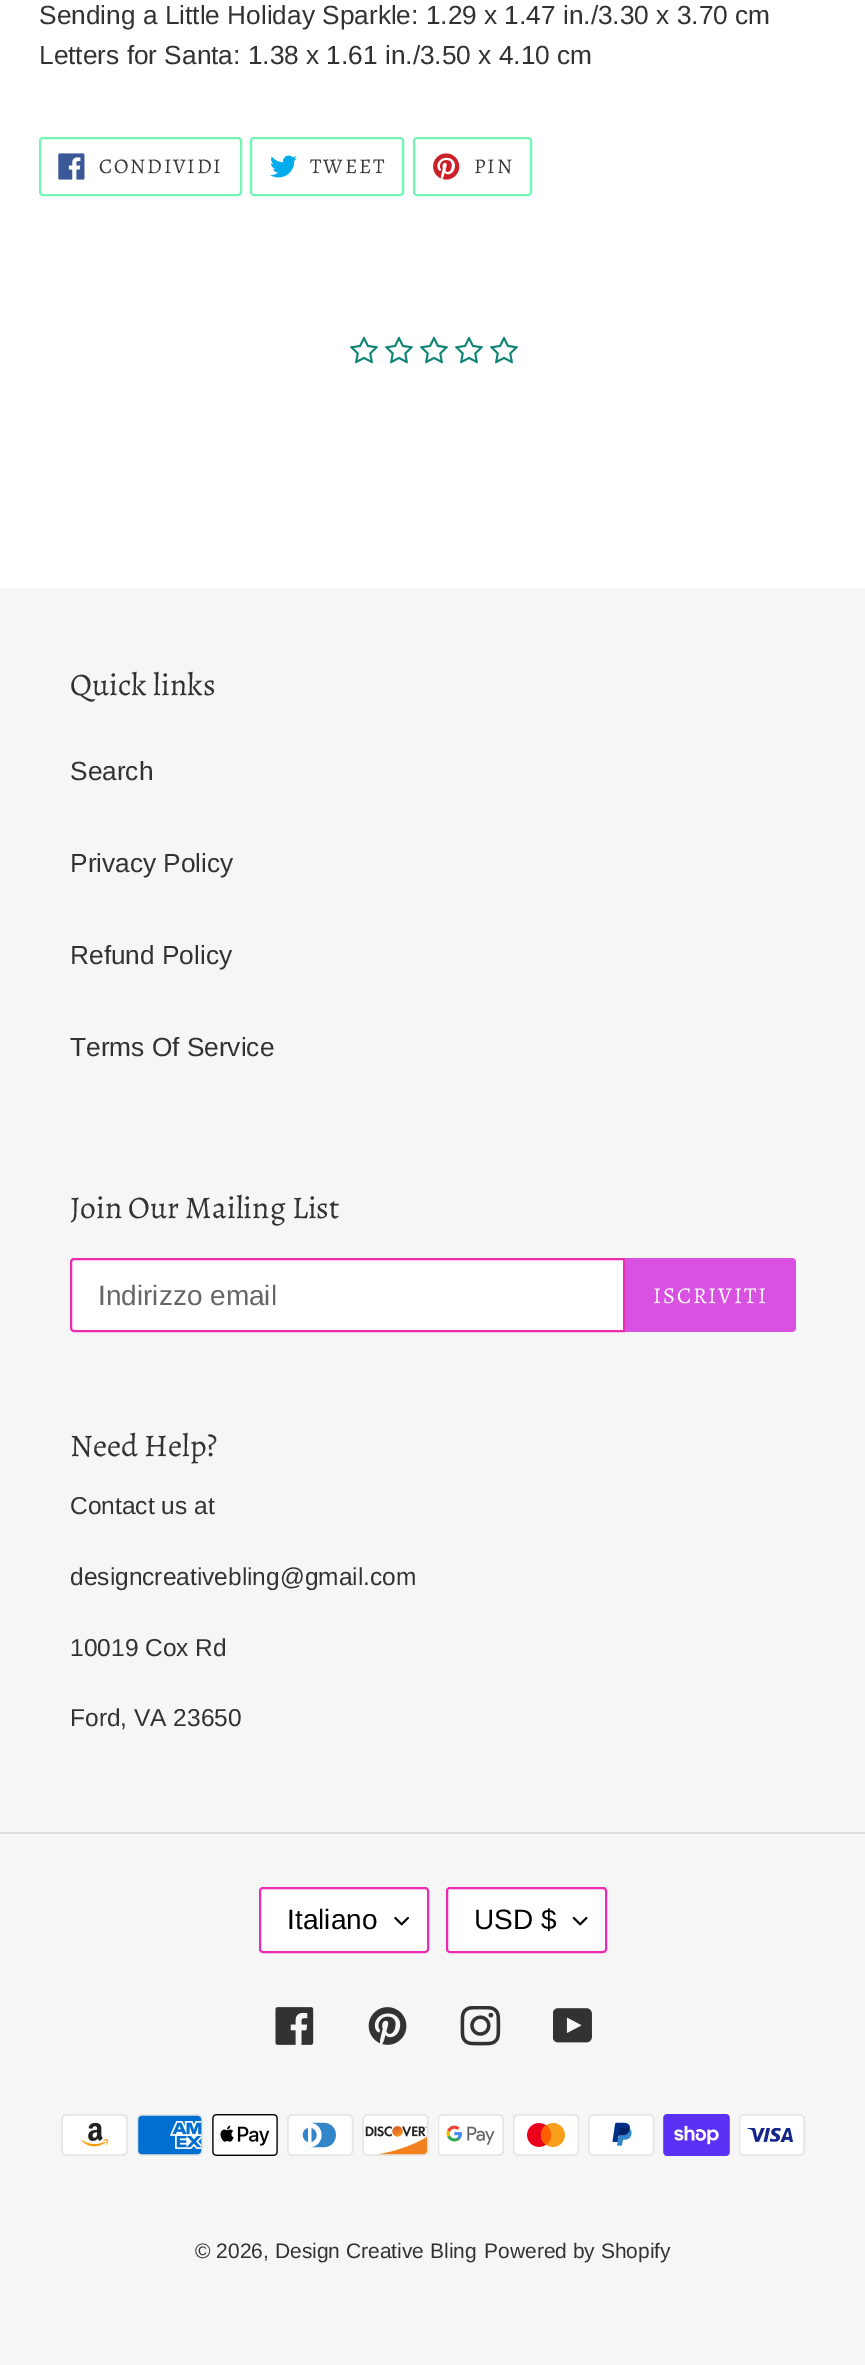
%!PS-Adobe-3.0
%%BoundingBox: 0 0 865 2365
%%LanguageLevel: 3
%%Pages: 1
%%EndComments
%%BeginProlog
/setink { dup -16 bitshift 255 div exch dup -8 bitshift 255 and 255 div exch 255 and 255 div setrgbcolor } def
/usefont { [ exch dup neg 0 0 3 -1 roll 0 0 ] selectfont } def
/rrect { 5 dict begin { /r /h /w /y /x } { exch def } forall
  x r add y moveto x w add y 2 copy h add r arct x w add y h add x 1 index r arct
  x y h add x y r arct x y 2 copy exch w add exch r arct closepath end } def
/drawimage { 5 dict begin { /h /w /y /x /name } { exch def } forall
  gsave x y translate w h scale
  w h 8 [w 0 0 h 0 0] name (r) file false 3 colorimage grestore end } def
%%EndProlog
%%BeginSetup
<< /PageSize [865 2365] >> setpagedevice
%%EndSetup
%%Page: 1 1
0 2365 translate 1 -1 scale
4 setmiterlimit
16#FFFFFF setink
0 0 865 2365 rectfill
/LiberationSans-Regular 26.25 usefont
16#333232 setink
39 24 moveto (Sending a Little Holiday Sparkle: 1.29 x 1.47 in./3.30 x 3.70 cm) show
39 64 moveto (Letters for Santa: 1.38 x 1.61 in./3.50 x 4.10 cm) show
16#73F5B3 setink
2 setlinewidth
40 138 201 57 3 rrect stroke
(img1.raw) 58 153 27 27 drawimage
/Alegreya-Regular 21 usefont
16#3A3A3A setink
99 173 moveto 1.75 0 (CONDIVIDI) ashow
16#73F5B3 setink
251 138 152 57 3 rrect stroke
(img2.raw) 270 155 27 23 drawimage
16#3A3A3A setink
310 173 moveto 1.75 0 (TWEET) ashow
16#73F5B3 setink
414 138 117 57 3 rrect stroke
(img3.raw) 433 153 27 27 drawimage
16#3A3A3A setink
474 173 moveto 1.75 0 (PIN) ashow
(img4.raw) 350 336 28 28 drawimage
(img4.raw) 385 336 28 28 drawimage
(img4.raw) 420 336 28 28 drawimage
(img4.raw) 455 336 28 28 drawimage
(img4.raw) 490 336 28 28 drawimage
16#F6F6F6 setink
0 588 865 1777 rectfill
/Alegreya-Regular 31.5 usefont
16#333232 setink
70 695 moveto (Quick links) show
/LiberationSans-Regular 26.25 usefont
[
    [(Search) 70 780]
    [(Privacy Policy) 70 872]
    [(Refund Policy) 70 964]
    [(Terms Of Service) 70 1056]
] { aload pop moveto show } forall
/Alegreya-Regular 31.5 usefont
70 1218 moveto (Join Our Mailing List) show
16#FFFFFF setink
74 1259 moveto 624 1259 lineto 624 1331 lineto 74 1331 lineto 72.5 1331 71 1329.5 71 1328 curveto 71 1262 lineto 71 1260.5 72.5 1259 74 1259 curveto closepath gsave fill grestore
16#EB2CB2 setink
stroke
/LiberationSans-Regular 28 usefont
16#666666 setink
98 1305 moveto (Indirizzo email) show
16#D951E0 setink
625 1258 moveto 792 1258 lineto 794 1258 796 1260 796 1262 curveto 796 1328 lineto 796 1330 794 1332 792 1332 curveto 625 1332 lineto closepath fill
/Alegreya-Regular 22.75 usefont
16#FFFFFF setink
653 1303 moveto 1.75 0 (ISCRIVITI) ashow
/Alegreya-Regular 31.5 usefont
16#333232 setink
70 1456 moveto (Need Help?) show
/LiberationSans-Regular 24.5 usefont
[
    [(Contact us at) 70 1514]
    [(designcreativebling@gmail.com) 70 1585]
    [(10019 Cox Rd) 70 1656]
    [(Ford, VA 23650) 70 1726]
] { aload pop moveto show } forall
16#DDDDDD setink
0 1832 865 2 rectfill
16#FFFFFF setink
259 1887 170 66 4 rrect fill
(img5.raw) 394 1916 15 10 drawimage
16#EB2CB2 setink
260 1888 168 64 3 rrect stroke
/LiberationSans-Regular 28 usefont
16#000000 setink
287 1929 moveto (Italiano) show
16#FFFFFF setink
446 1887 161 66 4 rrect fill
(img6.raw) 572 1916 16 10 drawimage
16#EB2CB2 setink
447 1888 159 64 3 rrect stroke
16#000000 setink
474 1929 moveto (USD $) show
(img7.raw) 275 2007 39 38 drawimage
(img8.raw) 368 2007 39 38 drawimage
(img9.raw) 460 2006 41 40 drawimage
(img10.raw) 553 2008 39 35 drawimage
(img11.raw) 61 2114 67 42 drawimage
(img12.raw) 137 2114 66 42 drawimage
(img13.raw) 212 2114 66 42 drawimage
(img14.raw) 287 2114 67 42 drawimage
(img15.raw) 362 2114 67 42 drawimage
(img16.raw) 438 2114 66 42 drawimage
(img17.raw) 513 2114 66 42 drawimage
(img18.raw) 588 2114 67 42 drawimage
(img19.raw) 663 2114 67 42 drawimage
(img20.raw) 739 2114 66 42 drawimage
/LiberationSans-Regular 21 usefont
16#333232 setink
195 2258 moveto (© 2026, Design Creative Bling) show
484 2258 moveto (Powered by Shopify) show
showpage
%%EOF
